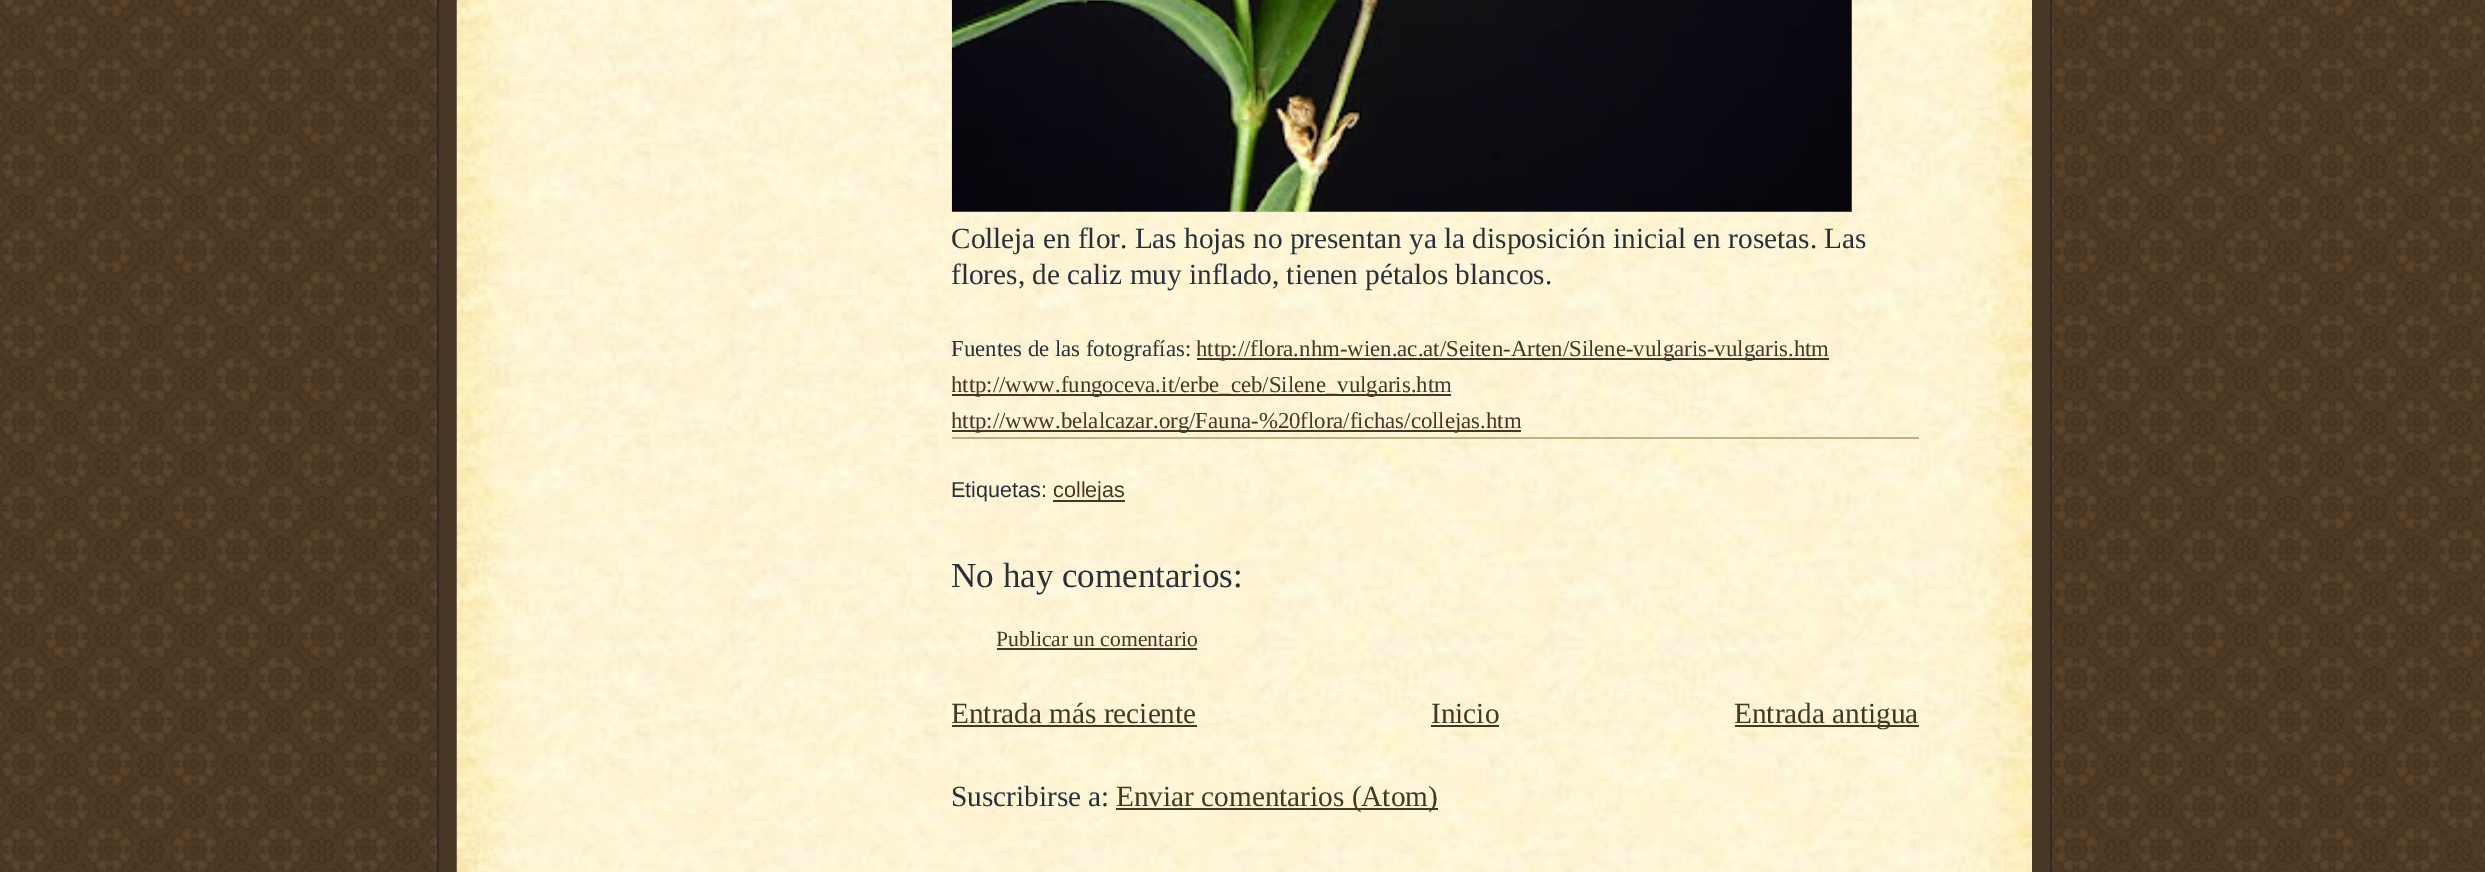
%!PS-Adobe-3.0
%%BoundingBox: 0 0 2485 872
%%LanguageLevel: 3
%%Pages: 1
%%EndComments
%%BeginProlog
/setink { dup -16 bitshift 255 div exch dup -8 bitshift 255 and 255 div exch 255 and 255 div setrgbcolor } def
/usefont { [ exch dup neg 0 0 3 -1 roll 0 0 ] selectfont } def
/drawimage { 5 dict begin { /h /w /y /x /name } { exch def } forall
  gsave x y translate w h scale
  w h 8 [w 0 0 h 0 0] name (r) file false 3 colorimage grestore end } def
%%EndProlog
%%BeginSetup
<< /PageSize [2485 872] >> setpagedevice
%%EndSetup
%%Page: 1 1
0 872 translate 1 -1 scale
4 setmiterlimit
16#FFFFFF setink
0 0 2485 872 rectfill
(img1.raw) 0 0 2485 872 drawimage
[
    [439 0 1611 872 16#473624]
    [2050 0 2 872 16#332A24]
    [437 0 2 872 16#332A24]
] { aload pop setink rectfill } forall
(img2.raw) 456 0 1576 872 drawimage
(img3.raw) 951 0 901 212 drawimage
gsave
952 0 967 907 rectclip
/LiberationSerif-Regular 29.25 usefont
16#29303B setink
951 248 moveto (Colleja en flor. Las hojas no presentan ya la disposición inicial en rosetas. Las) show
grestore
/LiberationSerif-Regular 29.25 usefont
16#29303B setink
951 284 moveto (flores, de caliz muy inflado, tienen pétalos blancos.) show
/LiberationSerif-Regular 22.8 usefont
951 356 moveto (Fuentes de las fotografías:) show
16#473624 setink
1197 358 632 2 rectfill
1196 356 moveto (http://flora.nhm-wien.ac.at/Seiten-Arten/Silene-vulgaris-vulgaris.htm) show
952 394 499 2 rectfill
gsave
952 0 967 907 rectclip
951 392 moveto (http://www.fungoceva.it/erbe_ceb/Silene_vulgaris.htm) show
grestore
952 430 569 2 rectfill
gsave
952 0 967 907 rectclip
951 428 moveto (http://www.belalcazar.org/Fauna-%20flora/fichas/collejas.htm) show
grestore
16#BFB186 setink
952 437 967 2 rectfill
/LiberationSans-Regular 21.6 usefont
16#29303B setink
951 497 moveto (Etiquetas:) show
16#473624 setink
1053 500 72 2 rectfill
1053 497 moveto (collejas) show
/LiberationSerif-Regular 35 usefont
16#29303B setink
951 587 moveto (No hay comentarios:) show
/LiberationSerif-Regular 21.6 usefont
16#473624 setink
996 646 moveto (Publicar un comentario) show
997 648 200 2 rectfill
gsave
952 695 967 36 rectclip
/LiberationSerif-Regular 29.25 usefont
951 723 moveto (Entrada más reciente) show
grestore
952 725 245 2 rectfill
/LiberationSerif-Regular 29.25 usefont
1431 723 moveto (Inicio) show
1431 725 68 2 rectfill
1735 725 184 2 rectfill
1734 723 moveto (Entrada antigua) show
16#29303B setink
951 806 moveto (Suscribirse a:) show
16#473624 setink
1116 808 322 2 rectfill
1116 806 moveto (Enviar comentarios \(Atom\)) show
showpage
%%EOF
